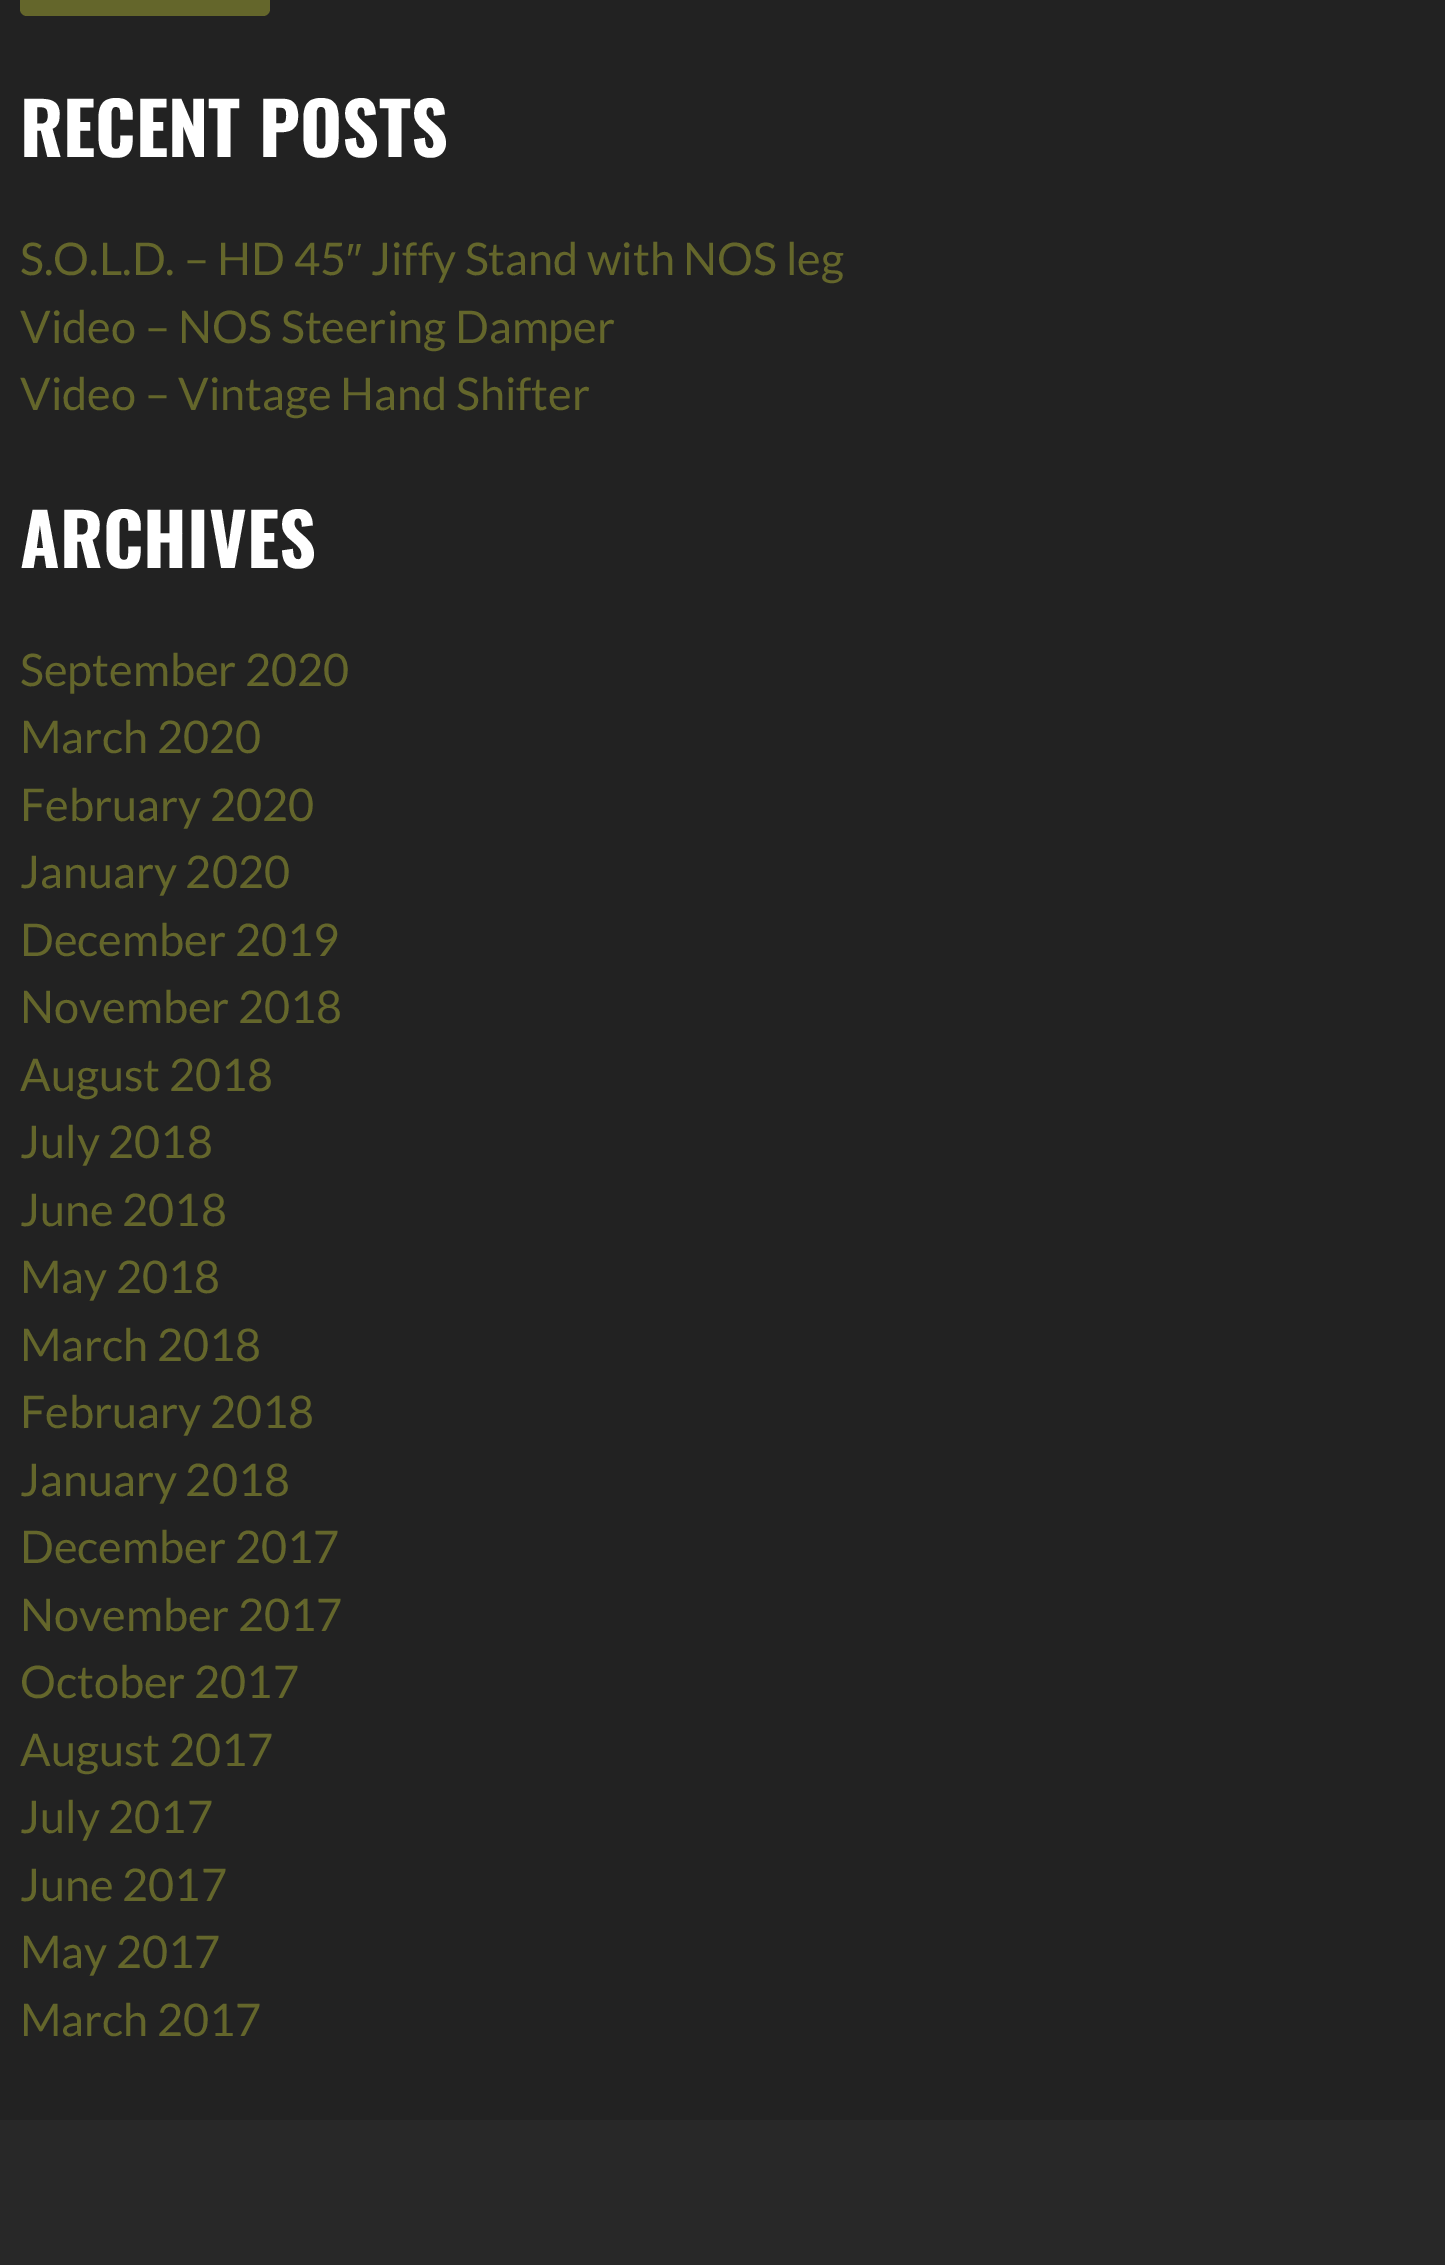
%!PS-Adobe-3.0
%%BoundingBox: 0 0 1445 2265
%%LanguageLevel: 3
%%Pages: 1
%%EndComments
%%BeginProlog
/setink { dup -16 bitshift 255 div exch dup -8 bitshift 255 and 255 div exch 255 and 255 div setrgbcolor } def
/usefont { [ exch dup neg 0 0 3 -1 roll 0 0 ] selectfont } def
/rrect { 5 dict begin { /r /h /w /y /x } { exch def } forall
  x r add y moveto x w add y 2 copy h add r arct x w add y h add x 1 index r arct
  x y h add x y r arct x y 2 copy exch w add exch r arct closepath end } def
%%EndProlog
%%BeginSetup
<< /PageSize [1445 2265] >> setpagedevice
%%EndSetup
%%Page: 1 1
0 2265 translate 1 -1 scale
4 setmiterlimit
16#222222 setink
0 0 1445 2265 rectfill
16#64662B setink
20 -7 250 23 7 rrect fill
/Oswald-Bold 72 usefont
16#FFFFFF setink
20 157 moveto (RECENT POSTS) show
/Lato-Regular 45 usefont
16#64662B setink
20 275 moveto (S.O.L.D. – HD 45) show
/LiberationSans-Regular 45 usefont
346 275 moveto (″) show
/Lato-Regular 45 usefont
[
    [(Jiffy Stand with NOS leg) 371 275]
    [(Video – NOS Steering Damper) 20 343]
    [(Video – Vintage Hand Shifter) 20 410]
] { aload pop moveto show } forall
/Oswald-Bold 72 usefont
16#FFFFFF setink
20 568 moveto (ARCHIVES) show
/Lato-Regular 45 usefont
16#64662B setink
[
    [(September 2020) 20 686]
    [(March 2020) 20 753]
    [(February 2020) 20 821]
    [(January 2020) 20 888]
    [(December 2019) 20 956]
    [(November 2018) 20 1023]
    [(August 2018) 20 1091]
    [(July 2018) 20 1158]
    [(June 2018) 20 1226]
    [(May 2018) 20 1293]
    [(March 2018) 20 1361]
    [(February 2018) 20 1428]
    [(January 2018) 20 1496]
    [(December 2017) 20 1563]
    [(November 2017) 20 1631]
    [(October 2017) 20 1698]
    [(August 2017) 20 1766]
    [(July 2017) 20 1833]
    [(June 2017) 20 1901]
    [(May 2017) 20 1968]
    [(March 2017) 20 2036]
] { aload pop moveto show } forall
16#282828 setink
0 2120 1445 145 rectfill
showpage
%%EOF
